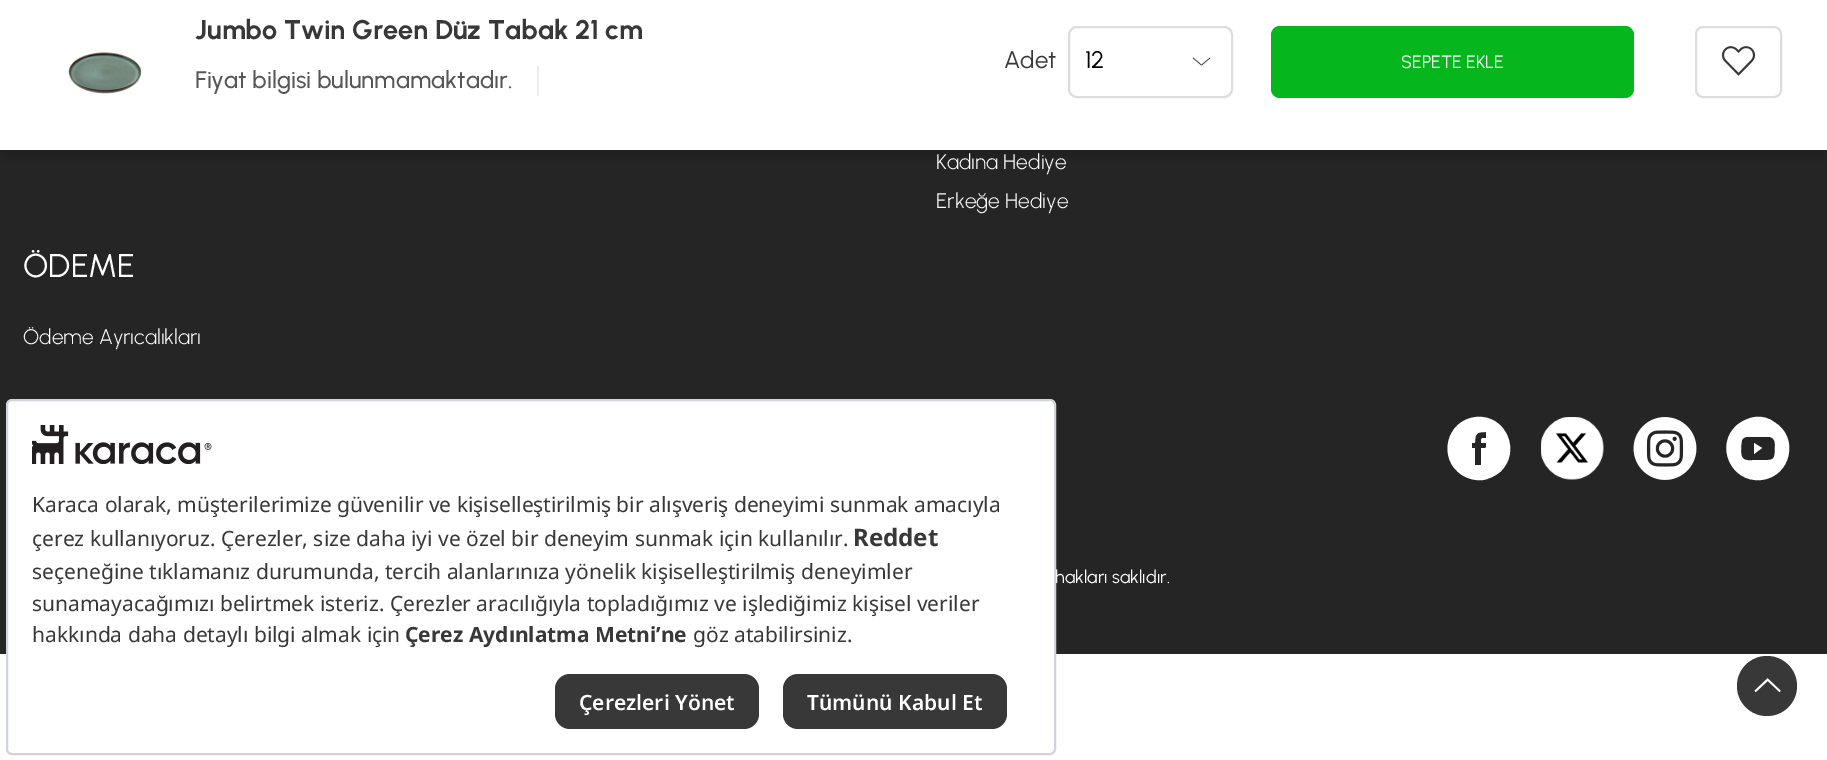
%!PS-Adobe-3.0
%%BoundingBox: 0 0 1827 760
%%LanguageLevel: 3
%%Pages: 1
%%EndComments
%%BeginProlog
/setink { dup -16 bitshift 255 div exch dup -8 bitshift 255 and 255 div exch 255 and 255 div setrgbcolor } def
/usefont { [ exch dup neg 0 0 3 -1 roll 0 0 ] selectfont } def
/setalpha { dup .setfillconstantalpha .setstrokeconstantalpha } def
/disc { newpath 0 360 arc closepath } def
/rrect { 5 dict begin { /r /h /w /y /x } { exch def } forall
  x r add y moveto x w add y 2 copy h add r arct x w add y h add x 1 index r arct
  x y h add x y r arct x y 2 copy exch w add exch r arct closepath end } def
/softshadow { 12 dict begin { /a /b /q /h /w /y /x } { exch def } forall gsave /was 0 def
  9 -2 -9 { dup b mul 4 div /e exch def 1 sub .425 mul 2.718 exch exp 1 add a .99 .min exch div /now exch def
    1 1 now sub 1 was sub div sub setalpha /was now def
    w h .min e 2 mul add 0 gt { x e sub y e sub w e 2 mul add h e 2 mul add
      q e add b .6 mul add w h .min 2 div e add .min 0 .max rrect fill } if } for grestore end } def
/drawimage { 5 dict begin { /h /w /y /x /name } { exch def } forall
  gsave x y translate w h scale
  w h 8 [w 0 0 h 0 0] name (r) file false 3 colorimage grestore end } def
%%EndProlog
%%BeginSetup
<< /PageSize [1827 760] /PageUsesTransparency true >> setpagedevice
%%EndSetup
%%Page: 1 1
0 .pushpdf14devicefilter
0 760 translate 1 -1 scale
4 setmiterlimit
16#252525 setink
0 0 1827 760 rectfill
16#000000 setink
0 9 1827 150 0 4 0.1 softshadow
16#FFFFFF setink
0 0 1827 150 rectfill
(img1.raw) 68 52 74 42 drawimage
/Urbanist-Bold 27 usefont
16#383838 setink
195 39 moveto (Jumbo Twin Green Düz Tabak 21 cm) show
16#ECECEC setink
537 66 2 30 rectfill
/Urbanist-Medium 24 usefont
16#585555 setink
195 88 moveto (Fiyat bilgisi bulunmamaktadır.) show
/Urbanist-Regular 24 usefont
16#383838 setink
1004 68 moveto (Adet) show
(img2.raw) 1192 57 19 9 drawimage
16#DDDDDD setink
2 setlinewidth
1069 27 163 70 8 rrect stroke
16#000000 setink
1085 68 moveto (12) show
16#05B71D setink
1271 26 363 72 9 rrect fill
/Urbanist-Regular 18 usefont
16#FFFFFF setink
1401 68 moveto (SEPETE EKLE) show
16#DDDDDD setink
1696 27 85 70 7 rrect stroke
(img3.raw) 1721 46 35 30 drawimage
/Urbanist-Light 21 usefont
16#FFFFFF setink
936 169 moveto (Kadına Hediye) show
936 208 moveto (Erkeğe Hediye) show
/Urbanist-Regular 33 usefont
23 277 moveto (ÖDEME) show
/Urbanist-Light 21 usefont
23 344 moveto (Ödeme Ayrıcalıkları) show
1476 417 moveto 1446 420 1437 459 1462 475 curveto 1468 479 1476 481 1483 480 curveto 1489 479 1495 476 1500 472 curveto 1522 452 1506 414 1476 417 curveto closepath 1486 435 moveto 1486 438 lineto 1481 438 1481 438 1481 443 curveto 1486 443 lineto 1486 449 1487 448 1481 448 curveto 1481 465 lineto 1475 465 lineto 1475 448 lineto 1472 448 lineto 1472 443 lineto 1475 443 lineto 1475 433 1477 432 1486 432 curveto closepath fill
(img4.raw) 1541 417 63 63 drawimage
(img5.raw) 1633 417 64 63 drawimage
1755 417 moveto 1748 418 1742 421 1737 425 curveto 1714 445 1731 483 1761 480 curveto 1791 477 1800 437 1774 422 curveto 1769 418 1762 416 1755 417 curveto closepath 1770 437 moveto 1774 438 1775 441 1775 445 curveto 1775 462 1774 460 1758 460 curveto 1749 460 1741 463 1741 451 curveto 1741 448 1741 444 1742 440 curveto 1744 436 1748 437 1752 437 curveto closepath 1754 448 moveto 1754 454 lineto 1762 448 lineto 1754 443 lineto closepath fill
/Urbanist-Regular 18 usefont
1055 583 moveto (hakları saklıdır.) show
0 654 1827 106 rectfill
7 400 1048 354 5 rrect gsave fill grestore
16#D1D5DB setink
stroke
(img6.raw) 32 425 180 39 drawimage
/NotoSans-Regular 21 usefont
16#383838 setink
32 512 moveto (Karaca olarak, müşterilerimize güvenilir ve kişiselleştirilmiş bir alışveriş deneyimi sunmak amacıyla) show
32 546 moveto (çerez kullanıyoruz. Çerezler, size daha iyi ve özel bir deneyim sunmak için kullanılır.) show
/NotoSans-Bold 24 usefont
853 546 moveto (Reddet) show
/NotoSans-Regular 21 usefont
[
    [(seçeneğine tıklamanız durumunda, tercih alanlarınıza yönelik kişiselleştirilmiş deneyimler) 32 579]
    [(sunamayacağımızı belirtmek isteriz. Çerezler aracılığıyla topladığımız ve işlediğimiz kişisel veriler) 32 611]
    [(hakkında daha detaylı bilgi almak için) 32 642]
] { aload pop moveto show } forall
/NotoSans-Bold 21 usefont
405 642 moveto (Çerez Aydınlatma Metni’ne) show
/NotoSans-Regular 21 usefont
693 642 moveto (göz atabilirsiniz.) show
555 674 204 55 15 rrect fill
/NotoSans-SemiBold 21 usefont
16#FFFFFF setink
579 710 moveto (Çerezleri Yönet) show
16#383838 setink
783 674 224 55 15 rrect fill
16#FFFFFF setink
807 710 moveto (Tümünü Kabul Et) show
16#383838 setink
1767 686 30 disc fill
(img7.raw) 1754 678 27 15 drawimage
.poppdf14devicefilter showpage
%%EOF
